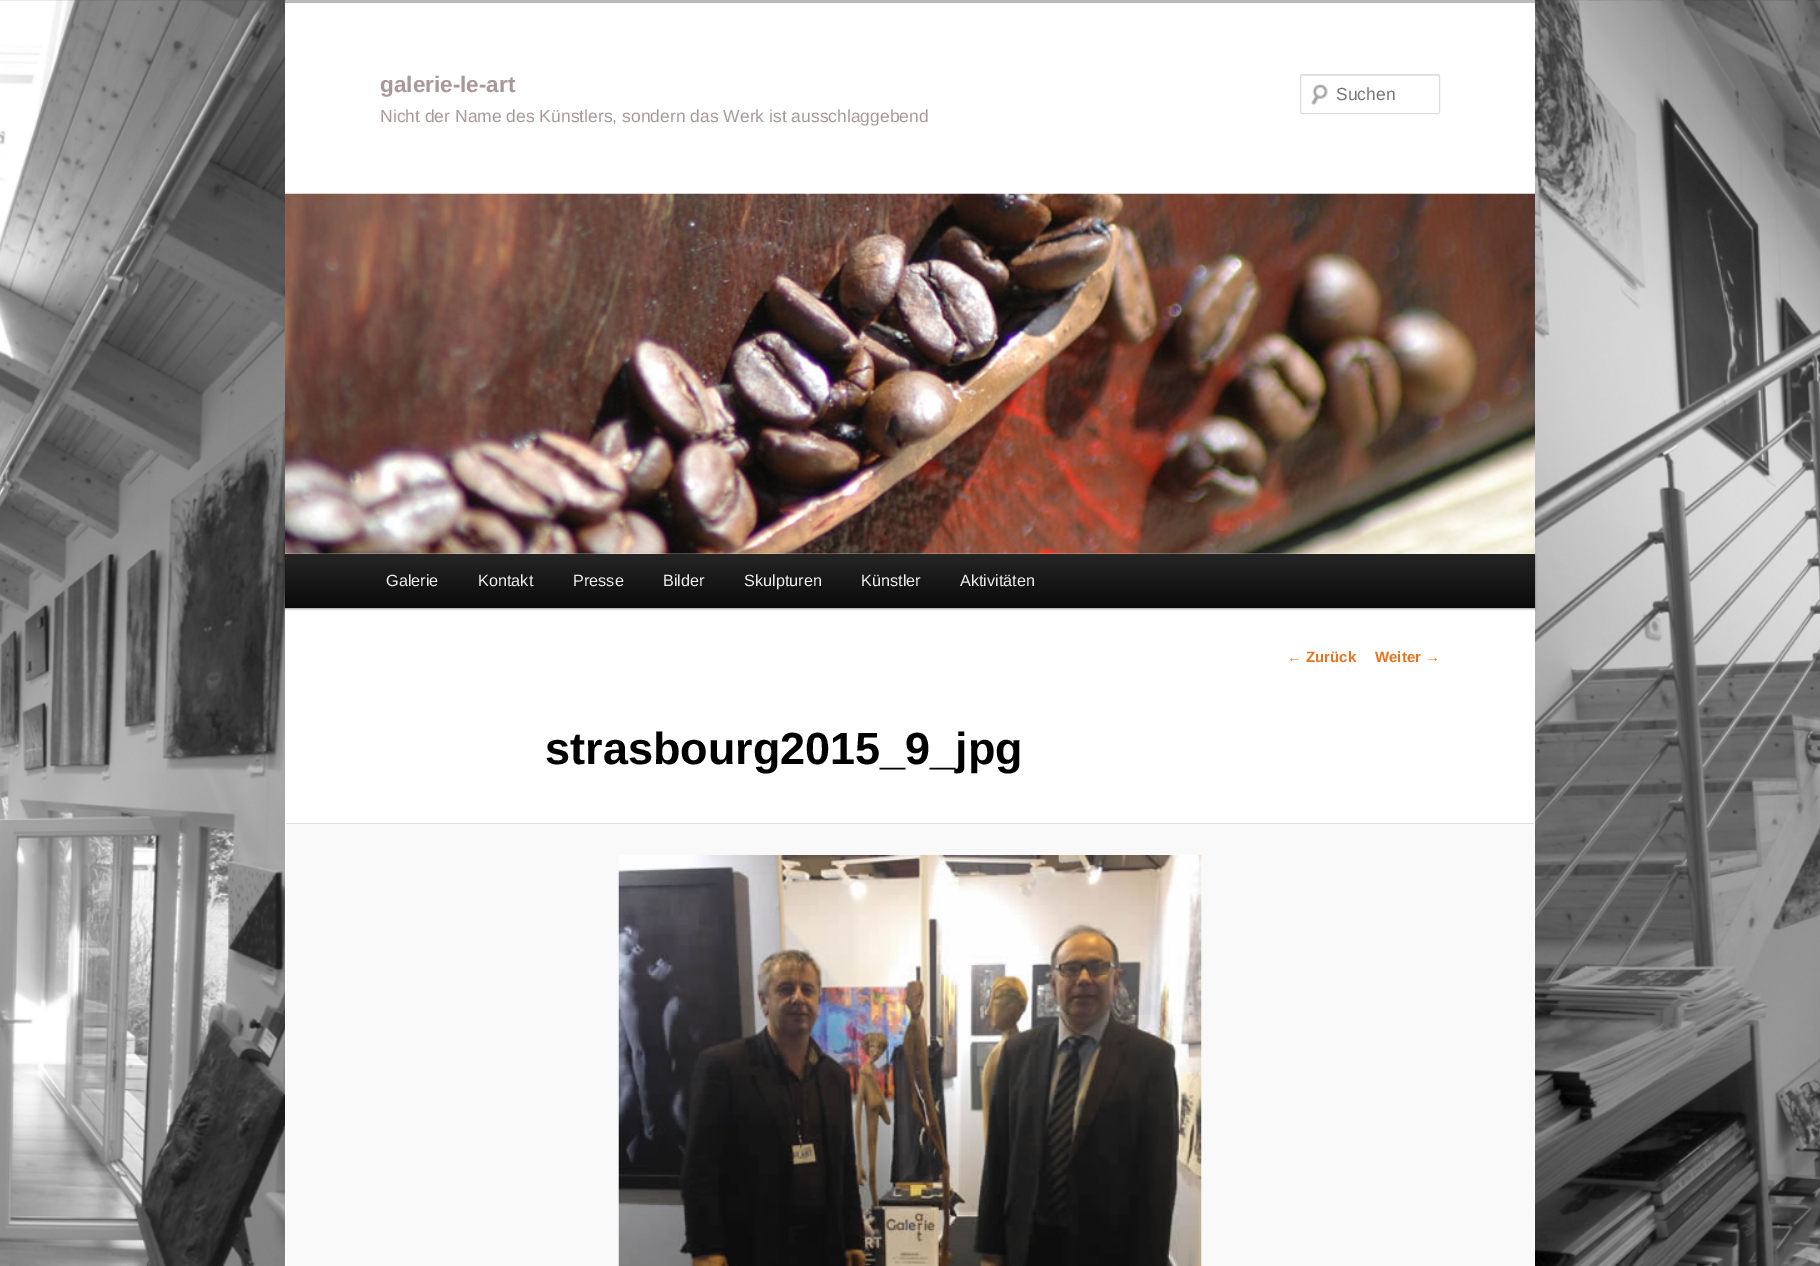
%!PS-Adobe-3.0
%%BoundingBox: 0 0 1820 1266
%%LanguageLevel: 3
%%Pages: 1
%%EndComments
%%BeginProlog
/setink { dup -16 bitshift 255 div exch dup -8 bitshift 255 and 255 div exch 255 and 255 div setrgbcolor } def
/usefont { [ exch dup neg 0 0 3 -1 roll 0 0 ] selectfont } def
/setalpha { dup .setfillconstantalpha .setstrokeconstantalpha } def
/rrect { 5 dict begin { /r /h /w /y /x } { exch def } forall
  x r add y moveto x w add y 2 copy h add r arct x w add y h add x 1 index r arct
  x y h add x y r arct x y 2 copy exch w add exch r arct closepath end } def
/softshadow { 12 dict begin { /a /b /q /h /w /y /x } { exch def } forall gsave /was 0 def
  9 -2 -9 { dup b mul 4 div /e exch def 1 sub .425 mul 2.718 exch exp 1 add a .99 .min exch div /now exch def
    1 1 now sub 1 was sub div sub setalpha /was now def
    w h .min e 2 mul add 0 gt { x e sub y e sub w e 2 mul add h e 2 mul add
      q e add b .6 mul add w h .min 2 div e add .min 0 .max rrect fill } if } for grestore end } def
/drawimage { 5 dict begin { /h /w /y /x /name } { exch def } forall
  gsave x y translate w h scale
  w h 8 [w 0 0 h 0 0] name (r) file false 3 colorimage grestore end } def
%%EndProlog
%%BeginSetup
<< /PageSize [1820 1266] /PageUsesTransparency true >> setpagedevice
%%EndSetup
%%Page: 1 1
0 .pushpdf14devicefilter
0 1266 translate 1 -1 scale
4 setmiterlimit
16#FFFFFF setink
0 0 1820 1266 rectfill
(img1.raw) 0 0 1820 1266 drawimage
285 3 1250 1263 rectfill
16#BBBBBB setink
285 0 1250 3 rectfill
/LiberationSans-Bold 22.5 usefont
16#A99898 setink
380 92 moveto (galerie-le-art) show
/LiberationSans-Regular 17.5 usefont
380 122 moveto (Nicht der Name des Künstlers, sondern das Werk ist ausschlaggebend) show
(img2.raw) 1311 84 17 21 drawimage
16#E6E6E6 setink
1302 76 moveto 1438 76 lineto 1439 78 lineto 1439 77 1439 75 1438 75 curveto 1302 75 lineto 1301 76 1301 77 1301 78 curveto closepath fill
16#DDDDDD setink
1300.5 74.5 139 39 2 rrect stroke
16#757575 setink
1336 100 moveto (Suchen) show
16#000000 setink
285 555 1250 54 0 1 0.4 softshadow
(img3.raw) 285 193 1250 361 drawimage
gsave 285 554 moveto 1535 554 lineto 1535 608 lineto 285 608 lineto closepath clip newpath
<< /ShadingType 2 /ColorSpace /DeviceRGB /Coords [910 554 910 608] /Extend [true true] /Function << /FunctionType 2 /Domain [0 1] /C0 [0.145 0.145 0.145] /C1 [0.039 0.039 0.039] /N 1 >> >> shfill grestore
/LiberationSans-Regular 16.25 usefont
16#EEEEEE setink
[
    [(Galerie) 386 586]
    [(Kontakt) 478 586]
    [(Presse) 573 586]
    [(Bilder) 663 586]
    [(Skulpturen) 744 586]
    [(Künstler) 861 586]
    [(Aktivitäten) 960 586]
] { aload pop moveto show } forall
/LiberationSans-Bold 15 usefont
16#E4741F setink
1287 662 moveto (← Zurück) show
1375 662 moveto (Weiter →) show
/LiberationSans-Bold 45 usefont
16#000000 setink
545 764 moveto (strasbourg2015_9_jpg) show
16#F9F9F9 setink
286 824 1248 442 rectfill
16#DDDDDD setink
286 823 1248 1 rectfill
(img4.raw) 618 855 584 411 drawimage
.poppdf14devicefilter showpage
%%EOF
